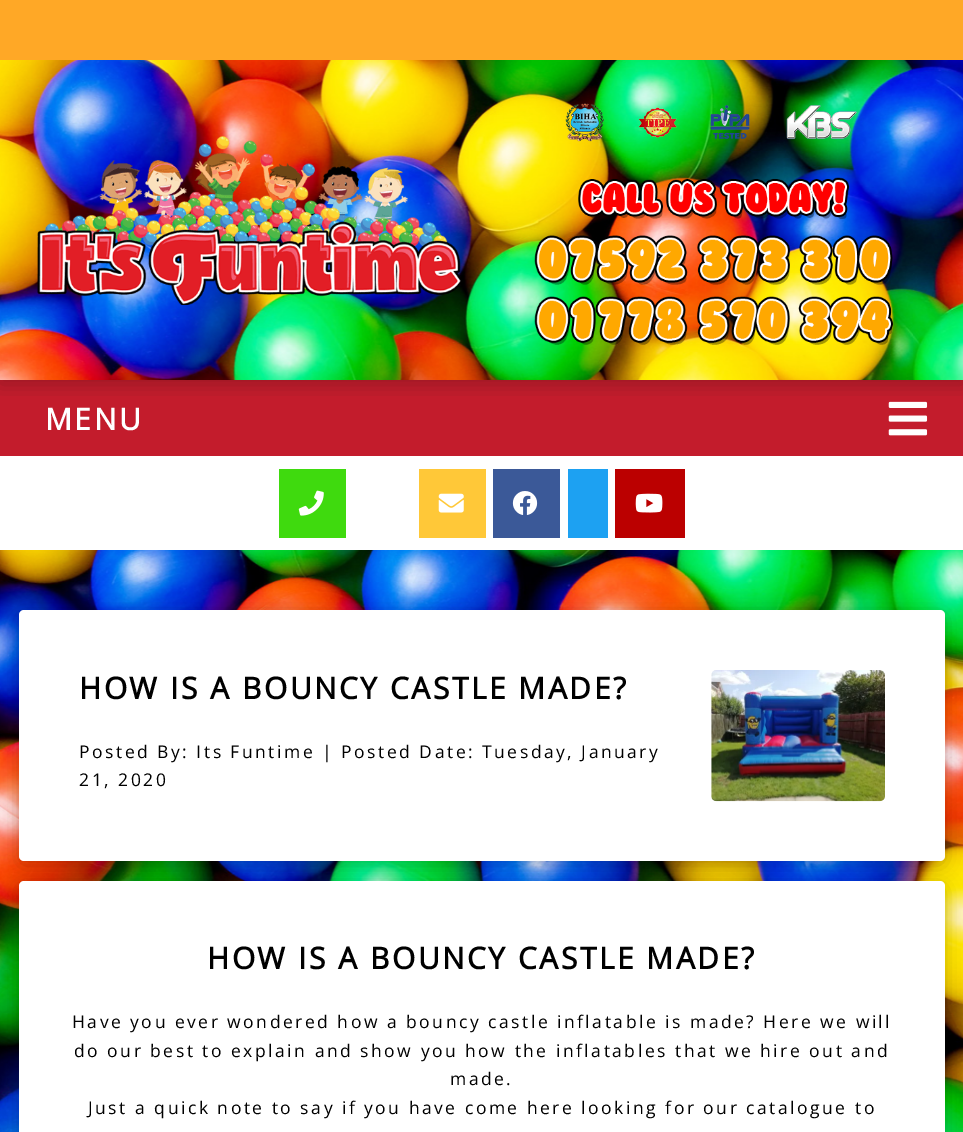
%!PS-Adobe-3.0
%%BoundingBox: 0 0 963 1132
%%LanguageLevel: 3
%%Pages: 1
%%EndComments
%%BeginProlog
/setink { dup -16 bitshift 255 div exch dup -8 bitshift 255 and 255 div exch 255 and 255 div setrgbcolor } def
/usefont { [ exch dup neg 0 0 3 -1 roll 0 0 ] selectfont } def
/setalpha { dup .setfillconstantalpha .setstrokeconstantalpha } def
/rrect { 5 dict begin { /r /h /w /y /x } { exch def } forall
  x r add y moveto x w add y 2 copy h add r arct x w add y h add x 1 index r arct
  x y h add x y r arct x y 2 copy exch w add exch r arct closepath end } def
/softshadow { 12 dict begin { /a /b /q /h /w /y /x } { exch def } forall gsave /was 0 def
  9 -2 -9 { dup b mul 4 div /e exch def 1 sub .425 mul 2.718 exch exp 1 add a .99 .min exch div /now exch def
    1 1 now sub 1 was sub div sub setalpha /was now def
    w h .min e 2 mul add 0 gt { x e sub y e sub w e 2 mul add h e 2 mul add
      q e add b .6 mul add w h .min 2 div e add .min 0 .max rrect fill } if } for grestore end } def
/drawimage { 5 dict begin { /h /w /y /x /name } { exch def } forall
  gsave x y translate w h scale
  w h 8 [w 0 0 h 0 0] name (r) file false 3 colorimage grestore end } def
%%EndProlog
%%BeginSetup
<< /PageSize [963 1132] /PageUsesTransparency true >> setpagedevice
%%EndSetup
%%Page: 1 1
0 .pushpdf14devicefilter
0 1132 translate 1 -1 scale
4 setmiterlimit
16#FFFFFF setink
0 0 963 1132 rectfill
(img1.raw) 0 60 963 1072 drawimage
16#C31C2C setink
0 380 963 76 rectfill
(img10.raw) 888 401 40 35 drawimage
gsave
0 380 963 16 rectclip
16#000000 setink
0 4 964 380 0 9.5 0.2 softshadow
grestore
16#FFA826 setink
0 0 963 60 rectfill
(img2.raw) 37 136 424 169 drawimage
(img3.raw) 565 103 39 39 drawimage
(img4.raw) 638 107 39 31 drawimage
(img5.raw) 710 105 40 34 drawimage
(img6.raw) 786 105 71 35 drawimage
(img7.raw) 578 177 272 43 drawimage
(img8.raw) 534 235 359 50 drawimage
(img9.raw) 534 296 359 49 drawimage
/OpenSans-Bold 30 usefont
16#FFFFFF setink
45 430 moveto 2.5 0 (MENU) ashow
0 456 963 94 rectfill
16#3FDA0E setink
279 469 67 69 rectfill
(img11.raw) 298 490 26 26 drawimage
16#FFC838 setink
419 469 67 69 rectfill
(img12.raw) 438 493 26 20 drawimage
16#3B5998 setink
493 469 67 69 rectfill
(img13.raw) 512 491 26 24 drawimage
16#1DA1F2 setink
568 469 40 69 rectfill
16#BB0000 setink
615 469 70 69 rectfill
(img14.raw) 635 493 28 20 drawimage
16#000000 setink
19 614 926 251 5 9.5 0.2 softshadow
16#FFFFFF setink
19 610 926 251 5 rrect fill
16#000000 setink
79 699 moveto 2.5 0 (HOW IS A BOUNCY CASTLE MADE?) ashow
/OpenSans-Regular 17.5 usefont
79 758 moveto 2.5 0 (Posted By: Its Funtime | Posted Date: Tuesday, January) ashow
79 786 moveto 2.5 0 (21, 2020) ashow
(img15.raw) 711 670 174 132 drawimage
19 885 926 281 5 9.5 0.2 softshadow
16#FFFFFF setink
19 881 926 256 5 rrect fill
/OpenSans-Bold 30 usefont
16#000000 setink
207 969 moveto 2.5 0 (HOW IS A BOUNCY CASTLE MADE?) ashow
/OpenSans-Regular 17.5 usefont
72 1028 moveto 2.5 0 (Have you ever wondered how a bouncy castle inflatable is made? Here we will) ashow
74 1057 moveto 2.5 0 (do our best to explain and show you how the inflatables that we hire out and) ashow
450 1085 moveto 2.5 0 (made.) ashow
88 1114 moveto 2.5 0 (Just a quick note to say if you have come here looking for our catalogue to) ashow
.poppdf14devicefilter showpage
%%EOF
